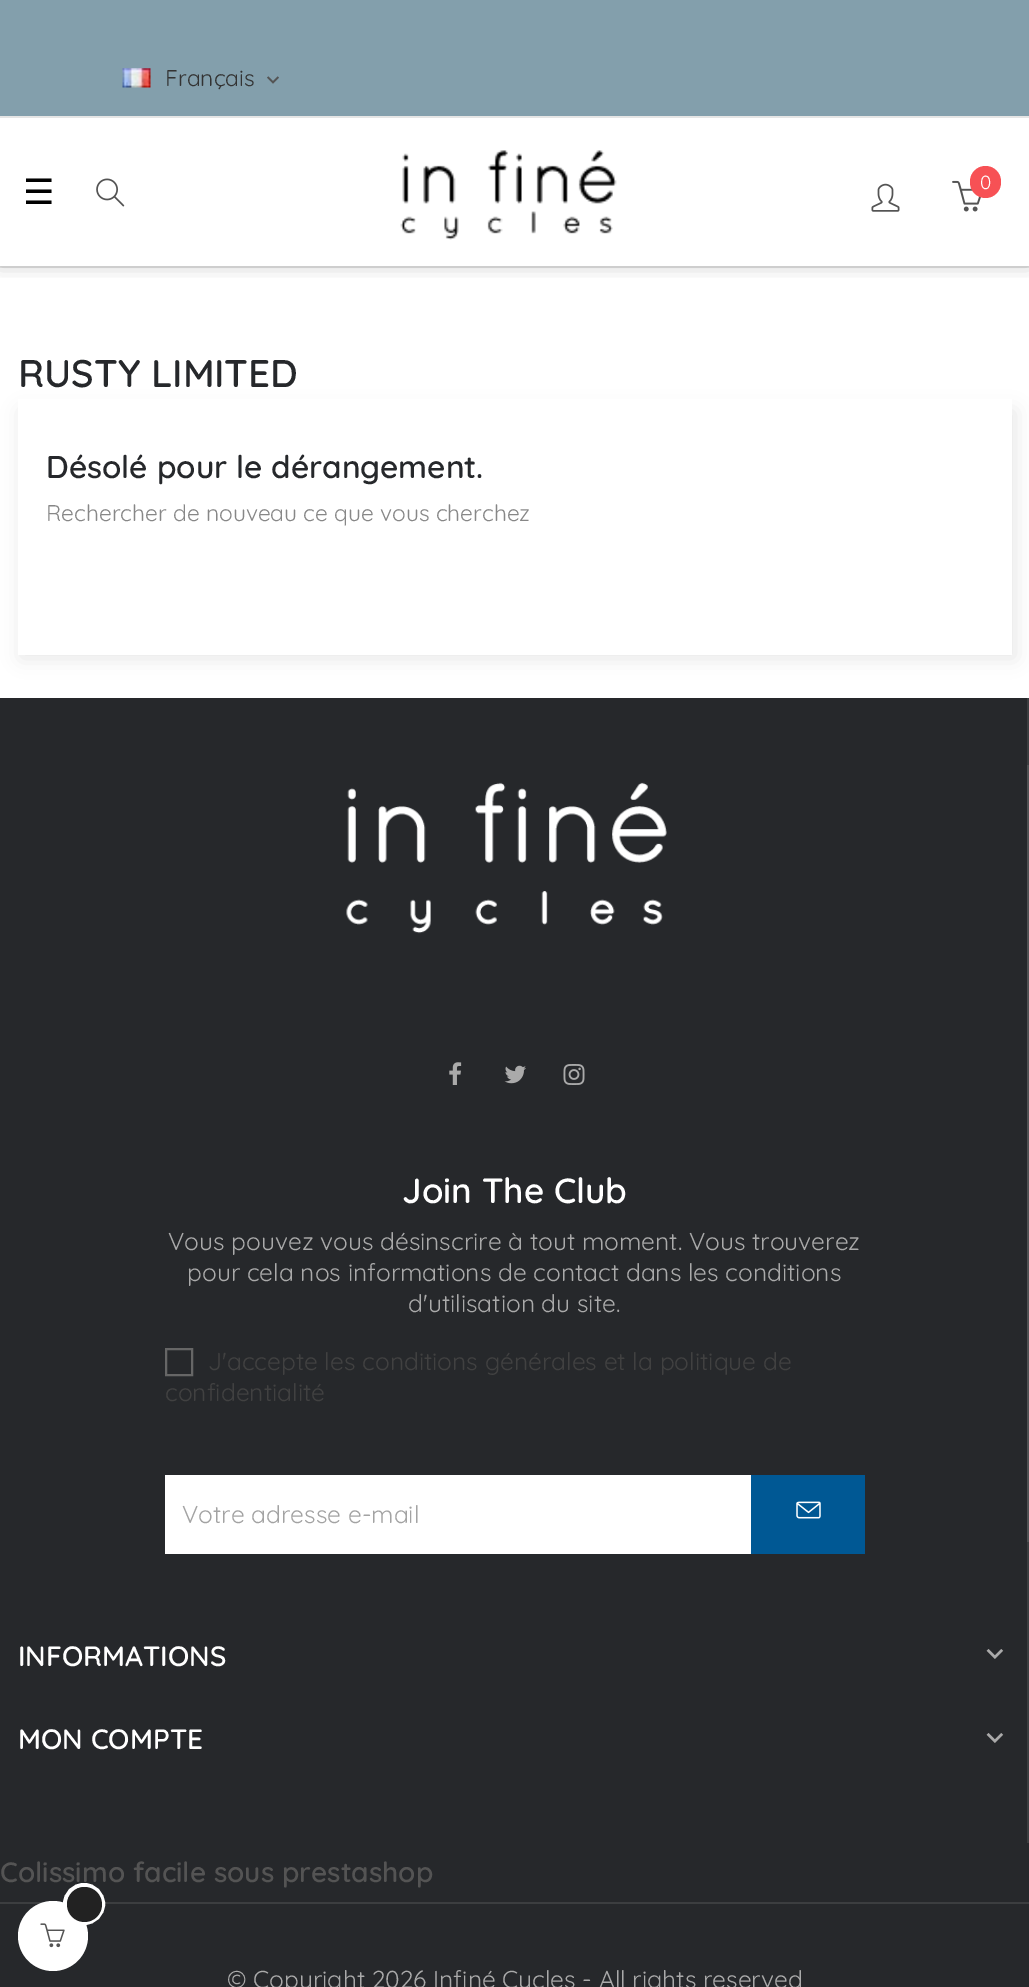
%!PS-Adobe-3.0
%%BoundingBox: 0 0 1029 1987
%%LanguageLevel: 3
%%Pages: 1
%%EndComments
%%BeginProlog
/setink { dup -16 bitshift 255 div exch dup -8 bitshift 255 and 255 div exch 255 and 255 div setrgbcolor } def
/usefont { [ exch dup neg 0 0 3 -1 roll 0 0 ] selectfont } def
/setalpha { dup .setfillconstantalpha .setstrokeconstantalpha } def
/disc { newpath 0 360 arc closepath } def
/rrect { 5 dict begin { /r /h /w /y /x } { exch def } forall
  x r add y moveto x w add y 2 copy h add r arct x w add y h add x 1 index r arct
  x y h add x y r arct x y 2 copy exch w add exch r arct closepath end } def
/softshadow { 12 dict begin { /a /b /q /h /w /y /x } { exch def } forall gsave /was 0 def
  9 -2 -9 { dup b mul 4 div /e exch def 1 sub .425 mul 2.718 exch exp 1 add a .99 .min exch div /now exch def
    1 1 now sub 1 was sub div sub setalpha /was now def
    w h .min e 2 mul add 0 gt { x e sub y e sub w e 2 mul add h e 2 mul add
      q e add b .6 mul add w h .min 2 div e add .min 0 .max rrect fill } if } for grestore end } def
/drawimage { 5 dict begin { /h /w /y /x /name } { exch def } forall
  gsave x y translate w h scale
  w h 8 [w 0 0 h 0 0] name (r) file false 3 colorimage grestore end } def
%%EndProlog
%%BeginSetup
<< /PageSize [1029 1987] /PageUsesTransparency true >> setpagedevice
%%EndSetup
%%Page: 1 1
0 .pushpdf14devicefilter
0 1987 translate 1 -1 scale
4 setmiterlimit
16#FFFFFF setink
0 0 1029 1987 rectfill
16#E6E6E6 setink
0 266 1029 2 rectfill
gsave
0 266 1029 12 rectclip
16#000000 setink
0 0 1029 266 0 9 0.2 softshadow
grestore
16#839FAC setink
0 0 1029 116 rectfill
16#E5E5E5 setink
0 116 1029 2 rectfill
(img1.raw) 122 68 29 20 drawimage
/Quicksand-Regular 22.75 usefont
16#333333 setink
165 86 moveto (Français) show
(img2.raw) 267 76 12 8 drawimage
/DejaVuSans-Regular 35 usefont
16#000000 setink
23 204 moveto (☰) show
(img3.raw) 96 178 29 29 drawimage
(img4.raw) 400 150 217 90 drawimage
(img5.raw) 871 183 29 29 drawimage
(img6.raw) 952 180 29 32 drawimage
16#F75155 setink
970 166 31 32 15.5 rrect fill
/Quicksand-Regular 19 usefont
16#FFFFFF setink
980 189 moveto (0) show
16#000000 setink
21 411 994 247 0 9.5 0.1 softshadow
/Quicksand-SemiBold 38.5 usefont
16#26282B setink
18 387 moveto (RUSTY LIMITED) show
16#FFFFFF setink
18 399 994 256 rectfill
/Quicksand-SemiBold 31.5 usefont
16#26282B setink
46 478 moveto (Désolé pour le dérangement.) show
/Quicksand-Regular 22.75 usefont
16#878787 setink
46 521 moveto (Rechercher de nouveau ce que vous cherchez) show
[
    [0 698 1029 1289 16#26282B]
    [1027 1542 2 301 16#3C3E40]
    [0 1902 1029 2 16#3C3E40]
] { aload pop setink rectfill } forall
(img7.raw) 346 782 321 152 drawimage
1027 698 2 67 rectfill
16#505153 setink
1027 765 2 777 rectfill
(img8.raw) 449 1062 13 23 drawimage
(img9.raw) 504 1065 22 19 drawimage
(img10.raw) 563 1064 22 21 drawimage
/Quicksand-SemiBold 35 usefont
16#FFFFFF setink
402 1203 moveto (Join The Club) show
/Quicksand-Regular 24.5 usefont
16#AAAAAA setink
[
    [(Vous pouvez vous désinscrire à tout moment. Vous trouverez) 168 1250]
    [(pour cela nos informations de contact dans les conditions) 187 1281]
    [(d'utilisation du site.) 408 1312]
] { aload pop moveto show } forall
16#666666 setink
2 setlinewidth
166 1349 26 26 rectstroke
16#414141 setink
208 1370 moveto (J'accepte les conditions générales et la politique de) show
165 1401 moveto (confidentialité) show
16#FFFFFF setink
165 1475 586 79 rectfill
16#A3A3A3 setink
182 1523 moveto (Votre adresse e-mail) show
16#005894 setink
751 1475 114 79 rectfill
(img11.raw) 796 1501 25 18 drawimage
/Quicksand-SemiBold 28 usefont
16#FFFFFF setink
18 1666 moveto (INFORMATIONS) show
(img12.raw) 986 1649 18 10 drawimage
18 1749 moveto (MON COMPTE) show
(img12.raw) 986 1733 18 10 drawimage
16#545454 setink
0 1882 moveto (Colissimo facile sous prestashop) show
/Quicksand-Regular 24.5 usefont
16#AAAAAA setink
227 1988 moveto (© Copyright 2026 Infiné Cycles - All rights reserved) show
16#FFFFFF setink
53 1936 35 disc fill
(img13.raw) 40 1923 25 25 drawimage
4 setlinewidth
84 1904 19 disc stroke
16#222222 setink
84.5 1904.5 17.5 disc fill
.poppdf14devicefilter showpage
%%EOF
